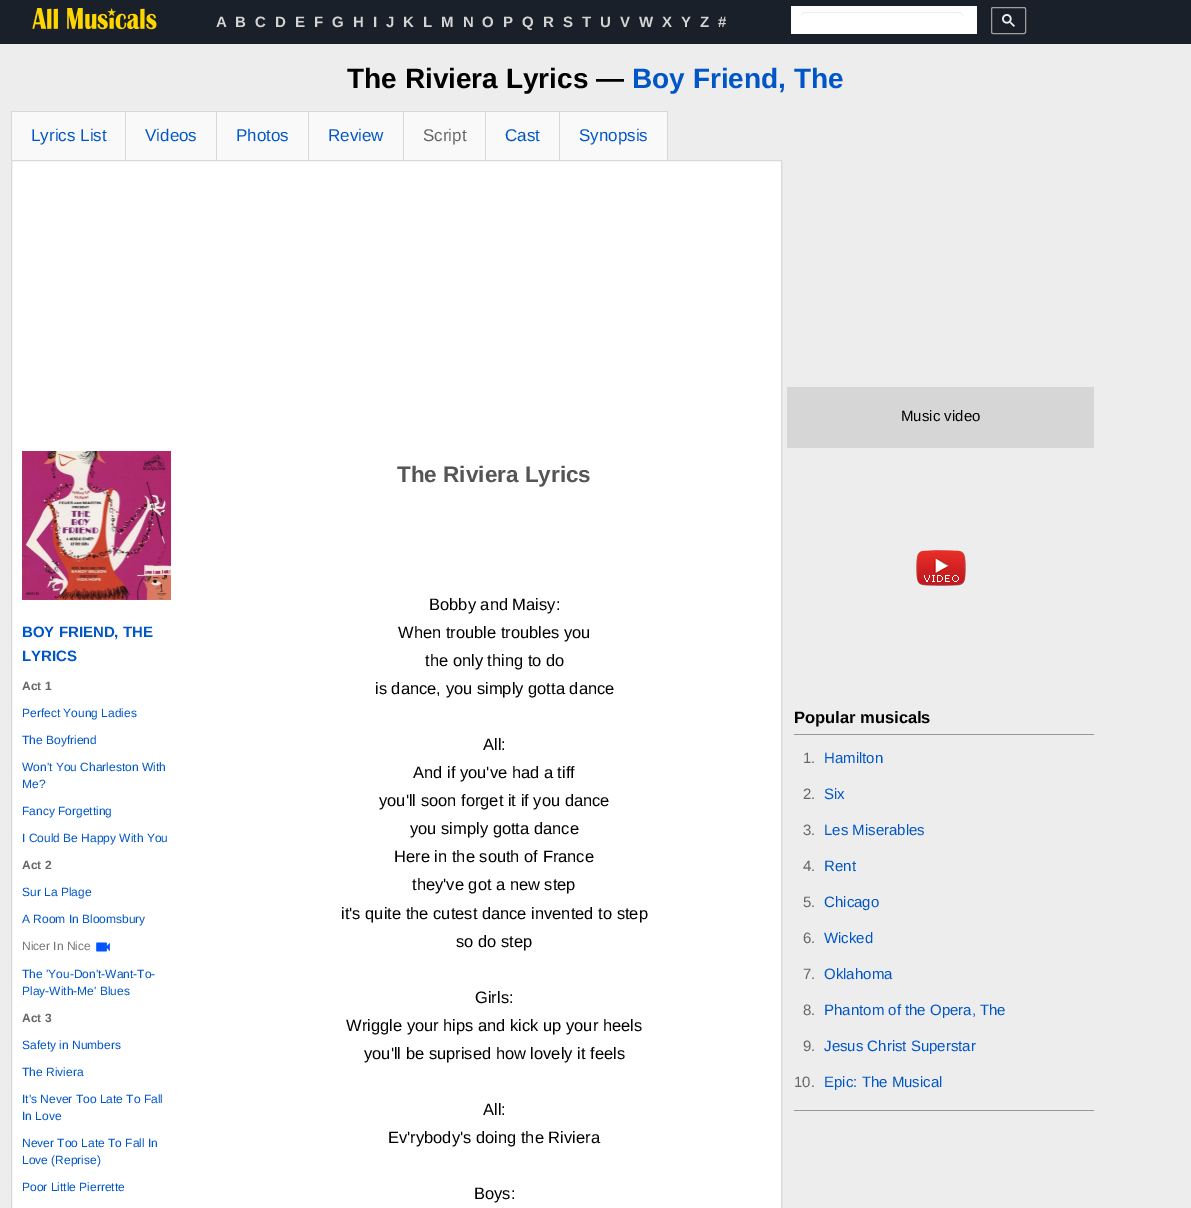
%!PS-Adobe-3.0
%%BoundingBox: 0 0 1191 1208
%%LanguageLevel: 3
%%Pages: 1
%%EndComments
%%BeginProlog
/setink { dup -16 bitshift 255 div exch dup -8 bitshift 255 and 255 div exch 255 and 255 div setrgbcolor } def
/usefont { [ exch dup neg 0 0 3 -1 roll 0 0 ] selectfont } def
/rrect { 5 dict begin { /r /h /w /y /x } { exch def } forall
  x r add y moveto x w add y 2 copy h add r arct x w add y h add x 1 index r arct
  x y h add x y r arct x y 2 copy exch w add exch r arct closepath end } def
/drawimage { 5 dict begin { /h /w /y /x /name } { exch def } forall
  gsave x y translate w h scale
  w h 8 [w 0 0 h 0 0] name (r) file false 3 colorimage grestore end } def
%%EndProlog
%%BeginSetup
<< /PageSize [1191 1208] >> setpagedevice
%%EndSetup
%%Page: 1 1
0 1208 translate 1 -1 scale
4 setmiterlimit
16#EDEDED setink
0 0 1191 1208 rectfill
16#19202A setink
0 0 1191 44 rectfill
(img1.raw) 32 8 125 22 drawimage
/LiberationSans-Bold 15 usefont
16#D4D4D4 setink
[
    [(A) 216 27]
    [(B) 235 27]
    [(C) 255 27]
    [(D) 275 27]
    [(E) 295 27]
    [(F) 314 27]
    [(G) 332 27]
    [(H) 353 27]
    [(I) 373 27]
    [(J) 386 27]
    [(K) 403 27]
    [(L) 423 27]
    [(M) 441 27]
    [(N) 463 27]
    [(O) 482 27]
    [(P) 503 27]
    [(Q) 522 27]
    [(R) 543 27]
    [(S) 563 27]
    [(T) 582 27]
    [(U) 600 27]
    [(V) 620 27]
    [(W) 639 27]
    [(X) 662 27]
    [(Y) 681 27]
    [(Z) 700 27]
    [(#) 718 27]
] { aload pop moveto show } forall
16#FFFFFF setink
791 6 186 28 rectfill
16#ECECEC setink
805 13 moveto 959 13 lineto 961 13 963 15 963 17 curveto 963 15 962 13 960 12 curveto 804 12 lineto 802 13 801 15 801 17 curveto 801 15 803 13 805 13 curveto closepath fill
16#9E9E9E setink
991.5 7.5 34 26 1.5 rrect stroke
(img2.raw) 1002 14 13 13 drawimage
/LiberationSans-Bold 28 usefont
16#000000 setink
347 88 moveto (The Riviera Lyrics —) show
16#0056C7 setink
632 88 moveto (Boy Friend, The) show
16#F9F9F9 setink
12 112 113 48 rectfill
16#D8D8D8 setink
11 111 656 1 rectfill
16#FFFFFF setink
11.5 160.5 moveto 781.5 160.5 lineto 781.5 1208.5 lineto 11.5 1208.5 lineto closepath gsave fill grestore
16#D8D8D8 setink
stroke
11 111 1 50 rectfill
/LiberationSans-Regular 17 usefont
16#0056C7 setink
31 141 moveto (Lyrics List) show
16#F9F9F9 setink
126 112 90 48 rectfill
16#D8D8D8 setink
125 111 1 50 rectfill
16#0056C7 setink
145 141 moveto (Videos) show
16#F9F9F9 setink
217 112 91 48 rectfill
16#D8D8D8 setink
216 111 1 50 rectfill
16#0056C7 setink
236 141 moveto (Photos) show
16#F9F9F9 setink
309 112 94 48 rectfill
16#D8D8D8 setink
308 111 1 50 rectfill
16#0056C7 setink
328 141 moveto (Review) show
16#F9F9F9 setink
404 112 81 48 rectfill
16#D8D8D8 setink
403 111 1 50 rectfill
16#666666 setink
423 141 moveto (Script) show
16#F9F9F9 setink
486 112 73 48 rectfill
16#D8D8D8 setink
485 111 1 50 rectfill
16#0056C7 setink
505 141 moveto (Cast) show
[
    [667 111 1 50 16#D8D8D8]
    [560 112 107 48 16#F9F9F9]
    [559 111 1 50 16#D8D8D8]
] { aload pop setink rectfill } forall
16#0056C7 setink
579 141 moveto (Synopsis) show
(img3.raw) 22 451 149 149 drawimage
/LiberationSans-Bold 15 usefont
22 637 moveto (BOY FRIEND, THE) show
22 661 moveto (LYRICS) show
/LiberationSans-Bold 12 usefont
16#666666 setink
22 690 moveto (Act 1) show
/LiberationSans-Regular 12 usefont
16#0056C7 setink
[
    [(Perfect Young Ladies) 22 717]
    [(The Boyfriend) 22 744]
    [(Won't You Charleston With) 22 771]
    [(Me?) 22 788]
    [(Fancy Forgetting) 22 815]
    [(I Could Be Happy With You) 22 842]
] { aload pop moveto show } forall
/LiberationSans-Bold 12 usefont
16#666666 setink
22 869 moveto (Act 2) show
/LiberationSans-Regular 12 usefont
16#0056C7 setink
22 896 moveto (Sur La Plage) show
22 923 moveto (A Room In Bloomsbury) show
16#777777 setink
22 950 moveto (Nicer In Nice) show
(img4.raw) 96 942 14 10 drawimage
16#0056C7 setink
22 978 moveto (The 'You-Don't-Want-To-) show
22 995 moveto (Play-With-Me' Blues) show
/LiberationSans-Bold 12 usefont
16#666666 setink
22 1022 moveto (Act 3) show
/LiberationSans-Regular 12 usefont
16#0056C7 setink
[
    [(Safety in Numbers) 22 1049]
    [(The Riviera) 22 1076]
    [(It's Never Too Late To Fall) 22 1103]
    [(In Love) 22 1120]
    [(Never Too Late To Fall In) 22 1147]
    [(Love \(Reprise\)) 22 1164]
    [(Poor Little Pierrette) 22 1191]
] { aload pop moveto show } forall
/LiberationSans-Bold 22.5 usefont
16#555555 setink
397 482 moveto (The Riviera Lyrics) show
/LiberationSans-Regular 16.5 usefont
16#000000 setink
[
    [(Bobby and Maisy:) 429 610]
    [(When trouble troubles you) 398 638]
    [(the only thing to do) 425 666]
    [(is dance, you simply gotta dance) 375 694]
    [(All:) 483 750]
    [(And if you've had a tiff) 413 778]
    [(you'll soon forget it if you dance) 379 806]
    [(you simply gotta dance) 410 834]
    [(Here in the south of France) 394 862]
    [(they've got a new step) 412 890]
    [(it's quite the cutest dance invented to step) 341 919]
    [(so do step) 456 947]
    [(Girls:) 475 1003]
    [(Wriggle your hips and kick up your heels) 346 1031]
    [(you'll be suprised how lovely it feels) 364 1059]
    [(All:) 483 1115]
    [(Ev'rybody's doing the Riviera) 388 1143]
    [(Boys:) 474 1199]
] { aload pop moveto show } forall
16#D6D6D6 setink
787 387 307 61 rectfill
/LiberationSans-Regular 15 usefont
16#000000 setink
901 421 moveto (Music video) show
(img5.raw) 916 550 50 36 drawimage
16#999999 setink
794 734 300 1 rectfill
/LiberationSans-Bold 16.5 usefont
16#000000 setink
794 723 moveto (Popular musicals) show
16#999999 setink
794 1110 300 1 rectfill
/LiberationSans-Regular 15 usefont
16#666666 setink
803 763 moveto (1.) show
16#0056C7 setink
824 763 moveto (Hamilton) show
16#666666 setink
803 799 moveto (2.) show
16#0056C7 setink
824 799 moveto (Six) show
16#666666 setink
803 835 moveto (3.) show
16#0056C7 setink
824 835 moveto (Les Miserables) show
16#666666 setink
803 871 moveto (4.) show
16#0056C7 setink
824 871 moveto (Rent) show
16#666666 setink
803 907 moveto (5.) show
16#0056C7 setink
824 907 moveto (Chicago) show
16#666666 setink
803 943 moveto (6.) show
16#0056C7 setink
824 943 moveto (Wicked) show
16#666666 setink
803 979 moveto (7.) show
16#0056C7 setink
824 979 moveto (Oklahoma) show
16#666666 setink
803 1015 moveto (8.) show
16#0056C7 setink
824 1015 moveto (Phantom of the Opera, The) show
16#666666 setink
803 1051 moveto (9.) show
16#0056C7 setink
824 1051 moveto (Jesus Christ Superstar) show
16#666666 setink
794 1087 moveto (10.) show
16#0056C7 setink
824 1087 moveto (Epic: The Musical) show
showpage
%%EOF
